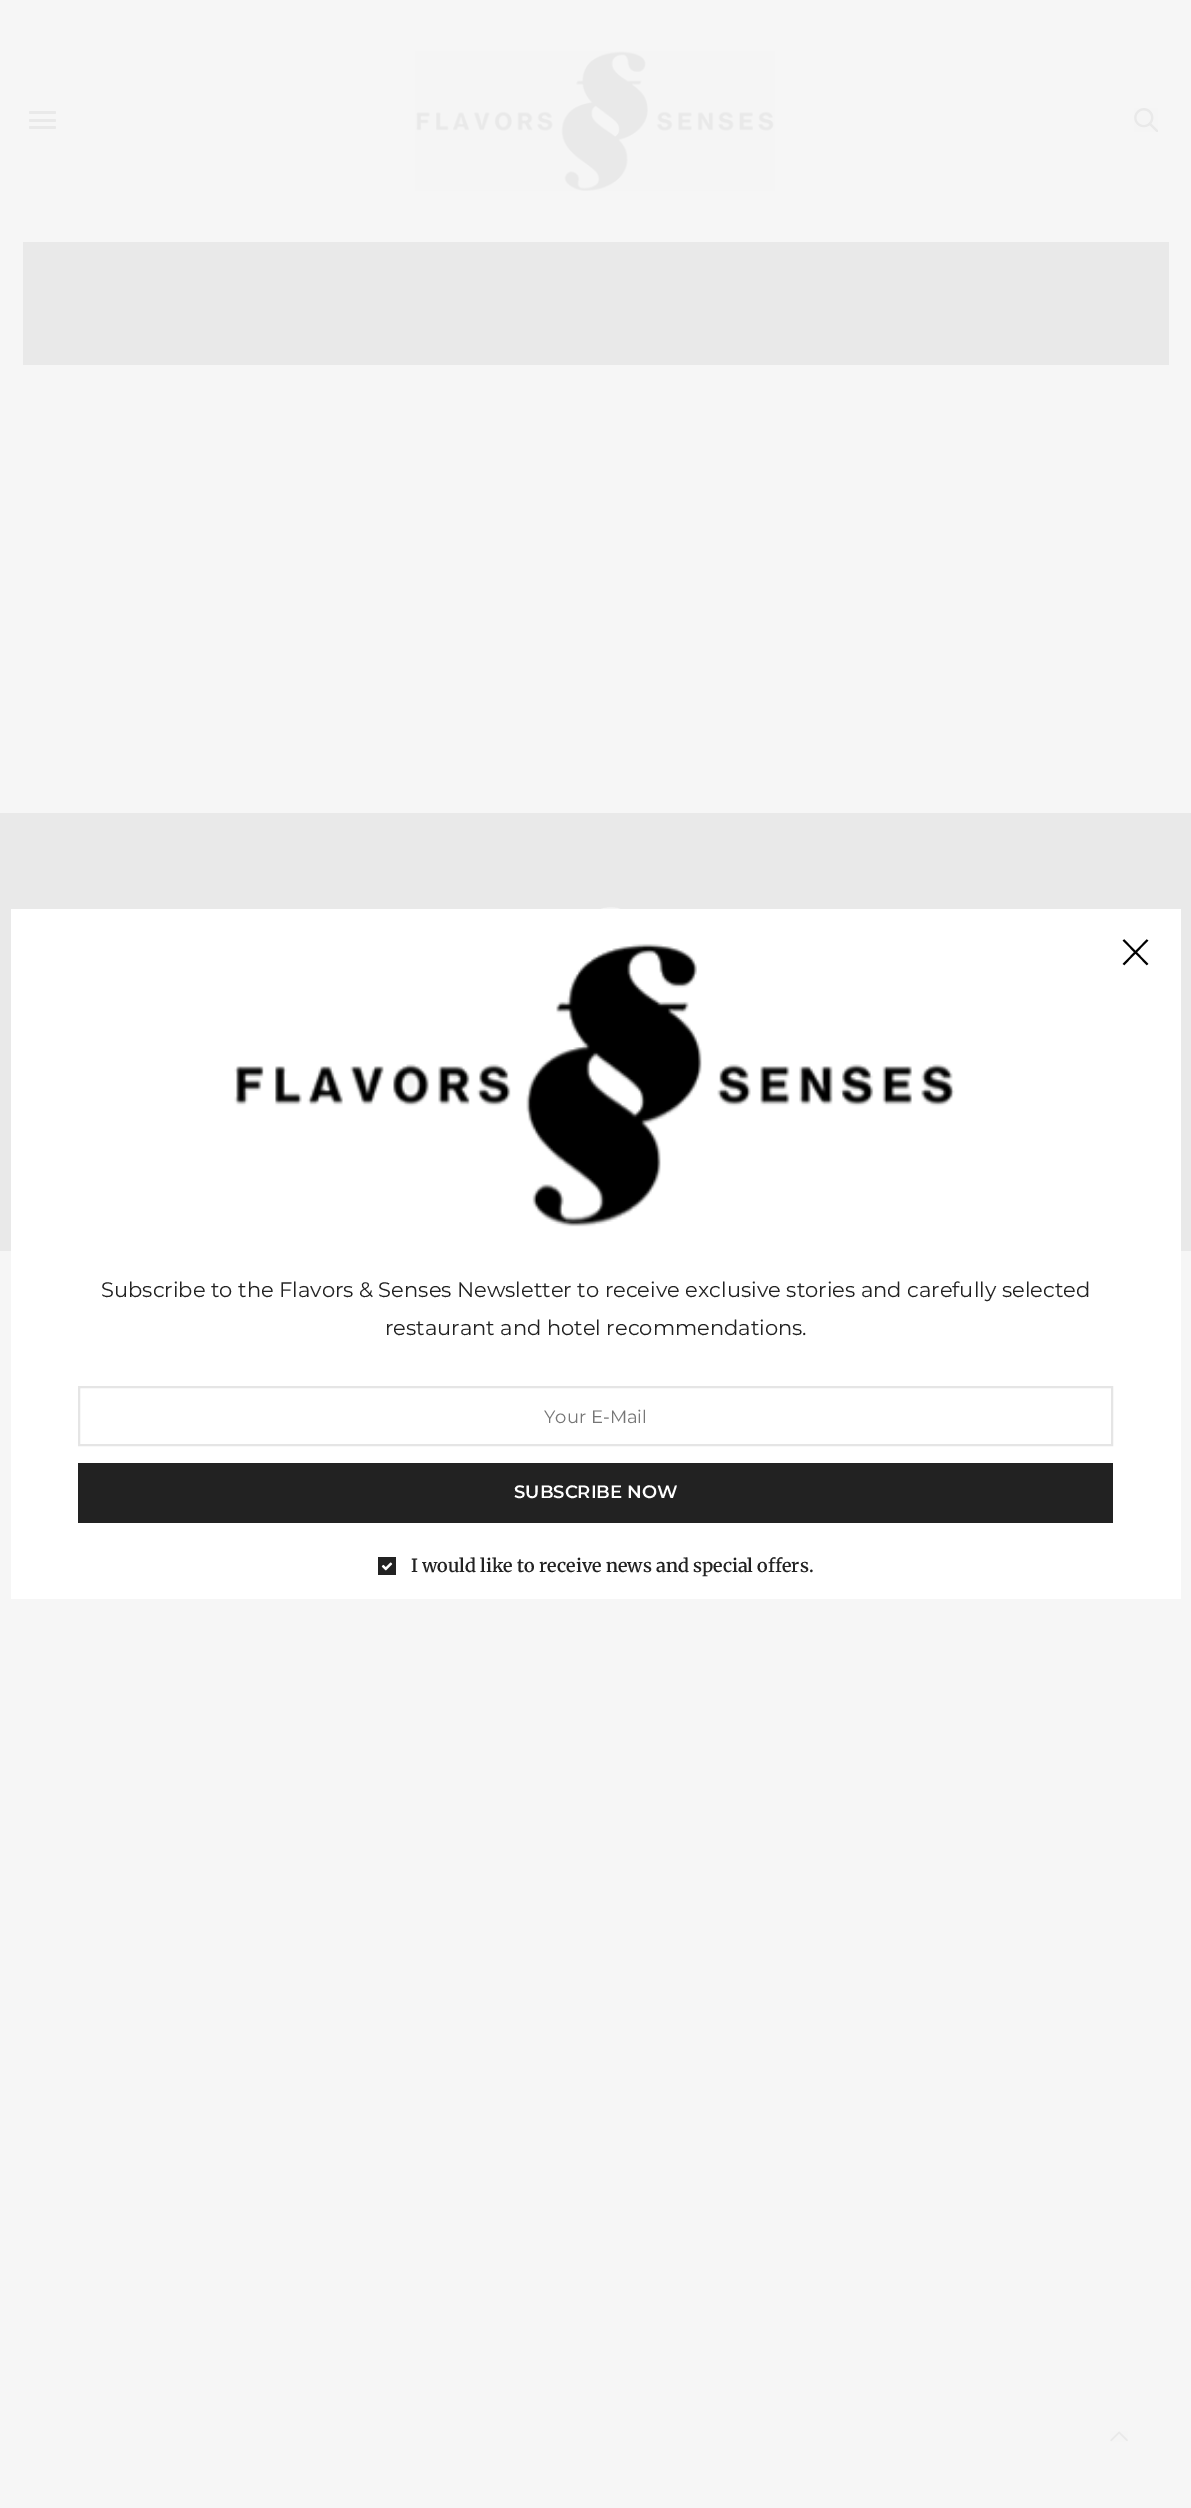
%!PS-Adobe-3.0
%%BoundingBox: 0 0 1191 2508
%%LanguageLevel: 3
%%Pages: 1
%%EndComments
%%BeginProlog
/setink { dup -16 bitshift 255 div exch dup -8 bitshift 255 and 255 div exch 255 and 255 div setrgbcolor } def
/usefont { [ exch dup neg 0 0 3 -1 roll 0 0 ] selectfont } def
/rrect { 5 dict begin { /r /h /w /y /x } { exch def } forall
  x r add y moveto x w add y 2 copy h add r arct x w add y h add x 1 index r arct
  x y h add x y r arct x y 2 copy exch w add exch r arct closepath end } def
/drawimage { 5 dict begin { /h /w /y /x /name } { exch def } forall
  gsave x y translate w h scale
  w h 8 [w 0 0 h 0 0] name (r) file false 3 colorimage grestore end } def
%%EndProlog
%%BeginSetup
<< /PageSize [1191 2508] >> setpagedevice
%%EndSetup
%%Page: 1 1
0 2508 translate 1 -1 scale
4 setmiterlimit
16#F6F6F6 setink
0 0 1191 2508 rectfill
16#E9E9E9 setink
29 111 27 3 1.5 rrect fill
29 119 27 3 1.5 rrect fill
29 126 27 3 1.5 rrect fill
(img1.raw) 415 51 360 140 drawimage
(img2.raw) 1134 108 24 24 drawimage
23 242 1146 123 rectfill
0 813 1191 438 rectfill
(img3.raw) 600 907 21 2 drawimage
16#FFFFFF setink
11 909 1170 690 rectfill
16#000000 setink
1.9 setlinewidth
1123.5 940 moveto 1147.5 964.5 lineto 1123.5 964.5 moveto 1147.5 940 lineto stroke
(img4.raw) 234 943 721 284 drawimage
/Montserrat-Regular 21 usefont
16#222222 setink
101 1297 moveto (Subscribe to the Flavors & Senses Newsletter to receive exclusive stories and carefully selected) show
385 1335 moveto (restaurant and hotel recommendations.) show
16#E5E5E5 setink
2 setlinewidth
79 1387 1033 58 rectstroke
/Montserrat-Regular 18 usefont
16#767676 setink
544 1423 moveto (Your E-Mail) show
16#222222 setink
78 1463 1035 60 rectfill
/Montserrat-SemiBold 18 usefont
16#FFFFFF setink
514 1498 moveto (SUBSCRIBE NOW) show
16#222222 setink
378 1557 18 18 rectfill
(img5.raw) 381 1562 12 9 drawimage
/Merriweather-SemiBold 18 usefont
411 1572 moveto (I would like to receive news and special offers.) show
(img6.raw) 1110 2431 18 11 drawimage
showpage
%%EOF
